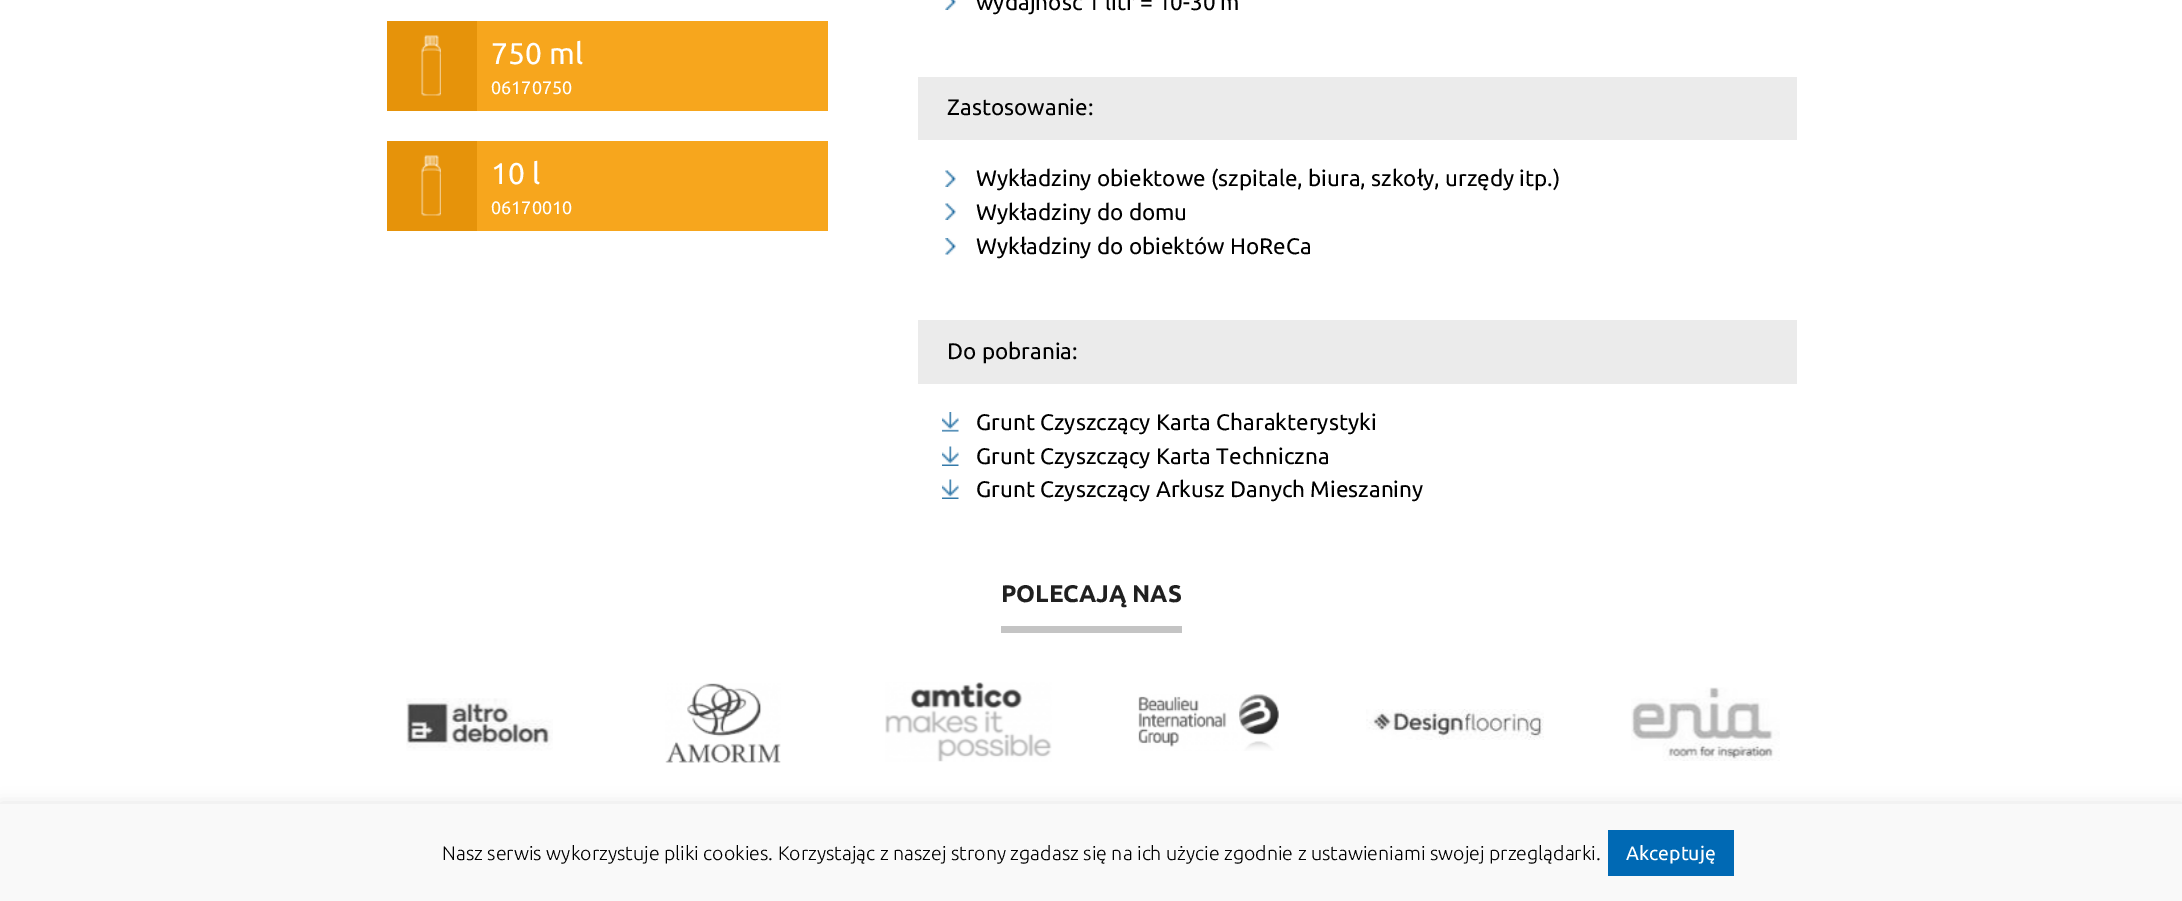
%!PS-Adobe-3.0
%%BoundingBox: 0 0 2182 901
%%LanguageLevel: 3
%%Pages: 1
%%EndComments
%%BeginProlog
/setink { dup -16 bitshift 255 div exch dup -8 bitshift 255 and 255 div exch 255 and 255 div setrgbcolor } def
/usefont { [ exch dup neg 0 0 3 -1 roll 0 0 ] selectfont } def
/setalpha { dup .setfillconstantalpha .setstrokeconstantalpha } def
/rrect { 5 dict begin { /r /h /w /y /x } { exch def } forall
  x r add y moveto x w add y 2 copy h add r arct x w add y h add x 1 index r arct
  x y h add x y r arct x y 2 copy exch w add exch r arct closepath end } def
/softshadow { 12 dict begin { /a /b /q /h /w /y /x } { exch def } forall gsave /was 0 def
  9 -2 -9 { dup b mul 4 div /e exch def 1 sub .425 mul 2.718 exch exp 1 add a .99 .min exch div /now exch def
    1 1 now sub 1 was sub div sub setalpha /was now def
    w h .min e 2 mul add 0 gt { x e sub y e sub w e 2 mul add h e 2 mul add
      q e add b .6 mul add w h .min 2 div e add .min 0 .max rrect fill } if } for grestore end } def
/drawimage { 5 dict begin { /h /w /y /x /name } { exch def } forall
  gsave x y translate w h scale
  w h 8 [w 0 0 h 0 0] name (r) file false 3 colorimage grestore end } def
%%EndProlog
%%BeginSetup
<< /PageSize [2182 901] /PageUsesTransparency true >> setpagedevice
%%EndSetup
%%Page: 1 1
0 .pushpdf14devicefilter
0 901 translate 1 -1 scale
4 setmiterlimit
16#FFFFFF setink
0 0 2182 901 rectfill
16#F7A61D setink
477 21 351 90 rectfill
16#E6930A setink
387 21 90 90 rectfill
(img1.raw) 421 35 20 61 drawimage
/Ubuntu-Regular 30 usefont
16#FFFFFF setink
491 64 moveto (750 ml) show
/Ubuntu-Regular 18 usefont
491 94 moveto (06170750) show
16#F7A61D setink
477 141 351 90 rectfill
16#E6930A setink
387 141 90 90 rectfill
(img1.raw) 421 155 20 61 drawimage
/Ubuntu-Regular 30 usefont
16#FFFFFF setink
491 184 moveto (10 l) show
/Ubuntu-Regular 18 usefont
491 214 moveto (06170010) show
(img2.raw) 945 0 11 10 drawimage
/Ubuntu-Regular 22.5 usefont
16#000000 setink
976 10 moveto (wydajność 1 litr = 10-30 m) show
16#EBEBEB setink
918 77 879 63 rectfill
16#000000 setink
947 115 moveto (Zastosowanie:) show
(img3.raw) 945 170 11 17 drawimage
976 186 moveto (Wykładziny obiektowe \(szpitale, biura, szkoły, urzędy itp.\)) show
(img3.raw) 945 203 11 17 drawimage
976 220 moveto (Wykładziny do domu) show
(img4.raw) 945 238 11 17 drawimage
976 254 moveto (Wykładziny do obiektów HoReCa) show
16#EBEBEB setink
918 320 879 64 rectfill
16#000000 setink
947 359 moveto (Do pobrania:) show
(img5.raw) 942 412 17 20 drawimage
976 430 moveto (Grunt Czyszczący Karta Charakterystyki) show
(img6.raw) 942 446 17 20 drawimage
976 464 moveto (Grunt Czyszczący Karta Techniczna) show
(img6.raw) 942 479 17 20 drawimage
976 497 moveto (Grunt Czyszczący Arkusz Danych Mieszaniny) show
/Ubuntu-Bold 24 usefont
16#202020 setink
1001 602 moveto (POLECAJĄ NAS) show
16#C4C4C4 setink
1001 626 181 7 rectfill
(img7.raw) 406 698 147 53 drawimage
(img8.raw) 665 683 116 80 drawimage
(img9.raw) 885 682 167 80 drawimage
(img10.raw) 1138 694 141 57 drawimage
(img11.raw) 1366 709 178 31 drawimage
(img12.raw) 1631 687 149 74 drawimage
16#ACABAB setink
0 803 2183 97 0 7.5 0.3 softshadow
16#F9F9F9 setink
0 804 2182 97 rectfill
/Ubuntu-Light 19.5 usefont
16#000000 setink
442 860 moveto (Nasz serwis wykorzystuje pliki cookies. Korzystając z naszej strony zgadasz się na ich użycie zgodnie z ustawieniami swojej przeglądarki.) show
16#0069B4 setink
1608 830 126 46 rectfill
/Ubuntu-Regular 19.5 usefont
16#FFFFFF setink
1626 860 moveto (Akceptuję) show
.poppdf14devicefilter showpage
%%EOF
